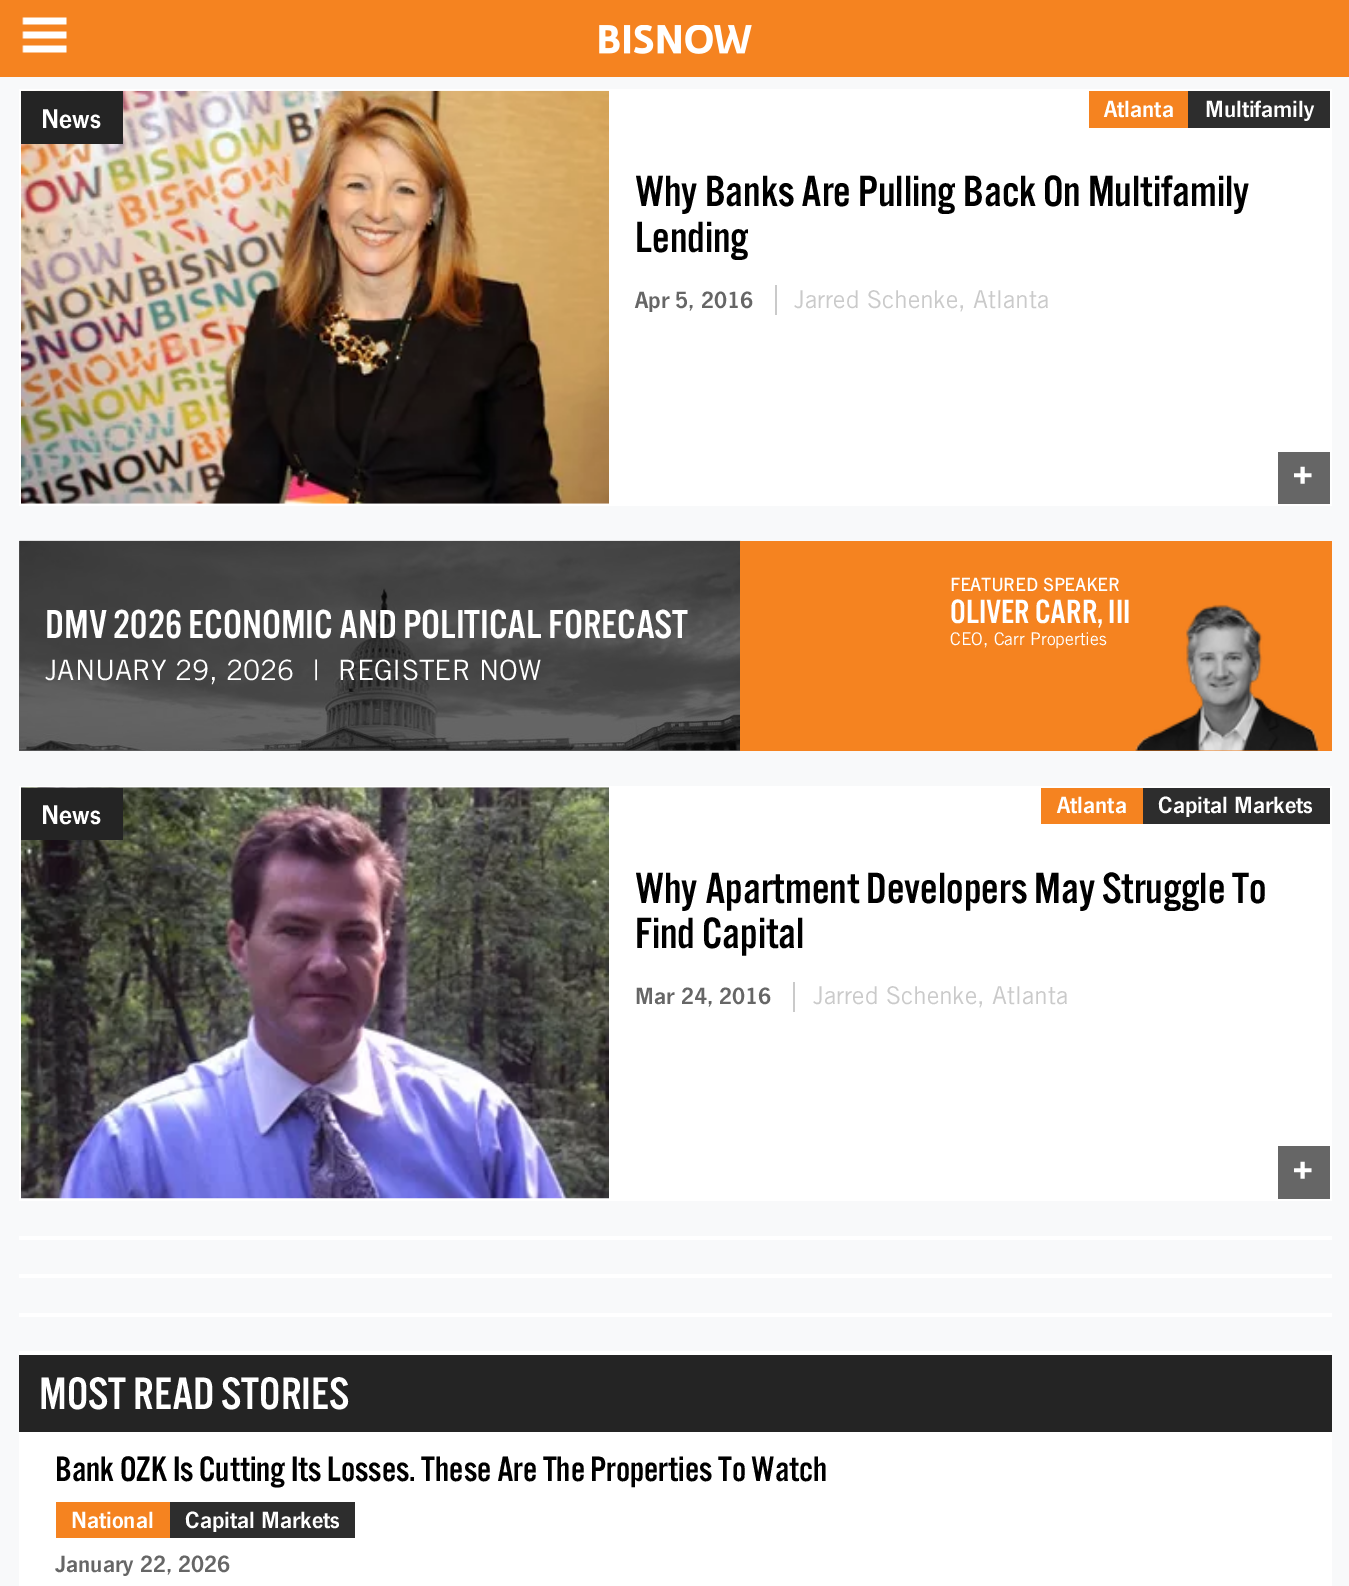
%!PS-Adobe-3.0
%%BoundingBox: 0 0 1349 1586
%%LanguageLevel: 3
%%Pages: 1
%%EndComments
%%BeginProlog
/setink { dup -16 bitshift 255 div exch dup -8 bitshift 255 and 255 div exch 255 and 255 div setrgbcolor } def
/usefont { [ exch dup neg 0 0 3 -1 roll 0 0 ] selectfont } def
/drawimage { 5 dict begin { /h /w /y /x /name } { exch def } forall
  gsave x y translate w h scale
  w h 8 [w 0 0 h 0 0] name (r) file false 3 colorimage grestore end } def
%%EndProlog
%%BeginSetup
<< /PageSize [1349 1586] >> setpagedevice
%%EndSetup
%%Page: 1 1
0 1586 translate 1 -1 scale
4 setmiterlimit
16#F8F9FA setink
0 0 1349 1586 rectfill
16#636464 setink
19 541 721 210 rectfill
16#F58320 setink
0 0 1349 77 rectfill
(img1.raw) 22 17 45 36 drawimage
(img2.raw) 599 25 153 29 drawimage
16#FFFFFF setink
19 89 1313 417 rectfill
(img3.raw) 21 90 588 414 drawimage
16#242424 setink
21 91 102 53 rectfill
/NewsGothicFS-SemiBold 28 usefont
16#FFFFFF setink
41 128 moveto (News) show
16#F58320 setink
1089 91 99 37 rectfill
/NewsGothicFS-SemiBold 24.5 usefont
16#FFFFFF setink
1104 117 moveto (Atlanta) show
16#2D2D2D setink
1188 91 142 37 rectfill
16#FFFFFF setink
1205 117 moveto (Multifamily) show
/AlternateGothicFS-Regular 45.5 usefont
16#000000 setink
635 206 moveto (Why Banks Are Pulling Back On Multifamily) show
635 252 moveto (Lending) show
/NewsGothicFS-SemiBold 24.5 usefont
16#666666 setink
635 308 moveto (Apr 5, 2016) show
16#CACACA setink
775 285 2 30 rectfill
/TradeGothic-Regular 24.5 usefont
794 308 moveto (Jarred Schenke, Atlanta) show
16#666666 setink
1278 452 52 52 rectfill
/AlternateGothicFS-Regular 52 usefont
16#FFFFFF setink
1292 493 moveto (+) show
(img4.raw) 19 540 722 211 drawimage
/AlternateGothicFS-Regular 42 usefont
45 638 moveto (DMV 2026 ECONOMIC AND POLITICAL FORECAST) show
/TradeGothic-Regular 28 usefont
[
    [(JANUARY 29, 2026) 45 680]
    [(|) 313 680]
    [(REGISTER NOW) 338 680]
] { aload pop moveto show } forall
16#F58320 setink
740 541 592 210 rectfill
/TradeGothic-Bold 17.5 usefont
16#FFFFFF setink
950 591 moveto (FEATURED SPEAKER) show
/AlternateGothicFS-Regular 35 usefont
950 623 moveto (OLIVER CARR, III) show
/TradeGothic-Regular 17.5 usefont
950 645 moveto (CEO, Carr Properties) show
(img5.raw) 1134 604 186 147 drawimage
19 786 1313 415 rectfill
(img6.raw) 21 787 588 412 drawimage
16#242424 setink
21 788 102 52 rectfill
/NewsGothicFS-SemiBold 28 usefont
16#FFFFFF setink
41 824 moveto (News) show
16#F58320 setink
1041 788 102 36 rectfill
/NewsGothicFS-SemiBold 24.5 usefont
16#FFFFFF setink
1057 813 moveto (Atlanta) show
16#2D2D2D setink
1143 788 187 36 rectfill
16#FFFFFF setink
1158 813 moveto (Capital Markets) show
/AlternateGothicFS-Regular 45.5 usefont
16#000000 setink
635 903 moveto (Why Apartment Developers May Struggle To) show
635 948 moveto (Find Capital) show
/NewsGothicFS-SemiBold 24.5 usefont
16#666666 setink
635 1004 moveto (Mar 24, 2016) show
16#CACACA setink
793 982 2 30 rectfill
/TradeGothic-Regular 24.5 usefont
813 1004 moveto (Jarred Schenke, Atlanta) show
16#666666 setink
1278 1146 52 53 rectfill
/AlternateGothicFS-Regular 52 usefont
16#FFFFFF setink
1292 1188 moveto (+) show
[
    [19 1236 1313 4 16#FFFFFF]
    [19 1274 1313 4 16#FFFFFF]
    [19 1313 1313 4 16#FFFFFF]
    [19 1351 1313 4 16#FFFFFF]
    [19 1432 1313 154 16#FFFFFF]
    [19 1355 1313 77 16#242424]
] { aload pop setink rectfill } forall
/AlternateGothicFS-Regular 47.25 usefont
16#FFFFFF setink
39 1409 moveto (MOST READ STORIES) show
/AlternateGothicFS-Regular 36.75 usefont
16#000000 setink
55 1481 moveto (Bank OZK Is Cutting Its Losses. These Are The Properties To Watch) show
16#F58320 setink
56 1502 114 36 rectfill
/NewsGothicFS-SemiBold 24.5 usefont
16#FFFFFF setink
71 1528 moveto (National) show
16#2D2D2D setink
170 1502 185 36 rectfill
16#FFFFFF setink
185 1528 moveto (Capital Markets) show
16#666666 setink
55 1572 moveto (January 22, 2026) show
showpage
%%EOF
